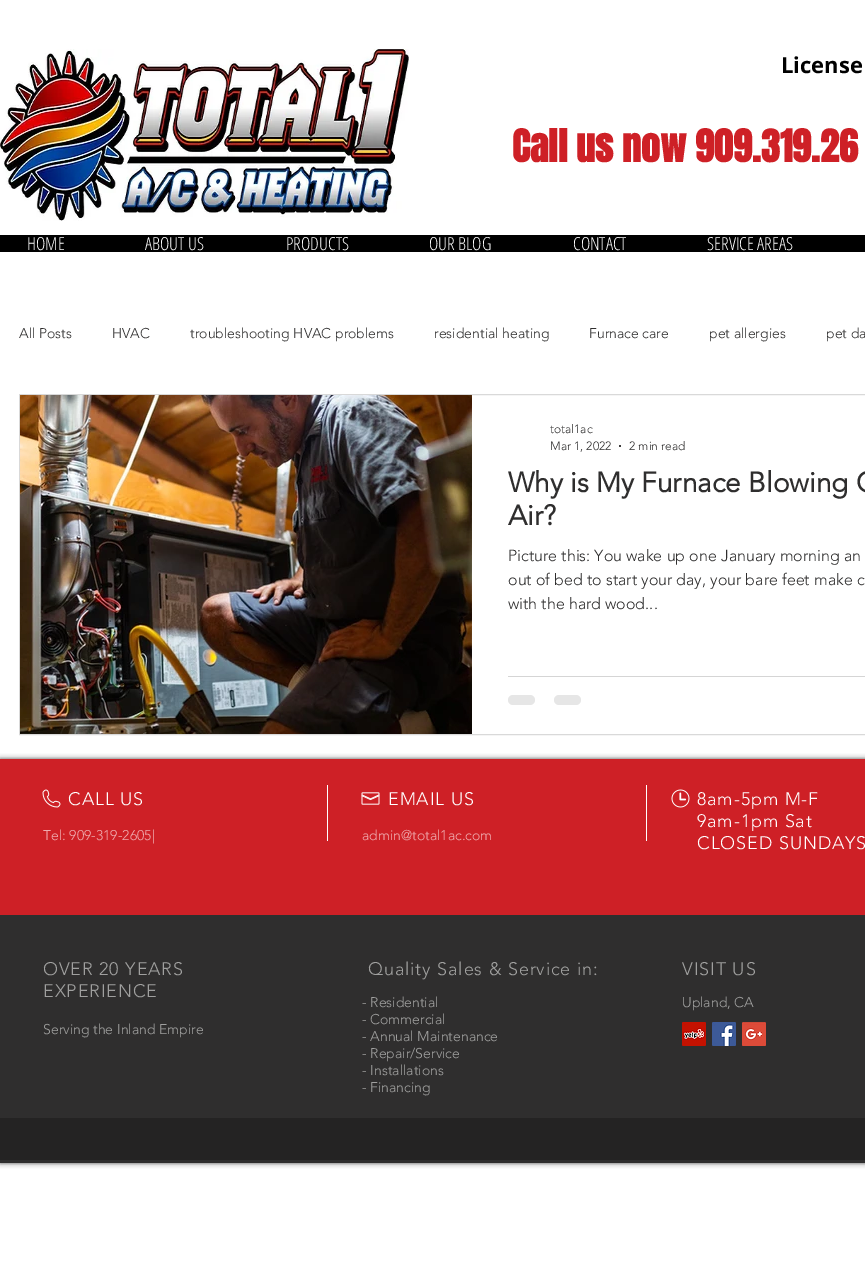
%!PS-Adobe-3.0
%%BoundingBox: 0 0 865 1265
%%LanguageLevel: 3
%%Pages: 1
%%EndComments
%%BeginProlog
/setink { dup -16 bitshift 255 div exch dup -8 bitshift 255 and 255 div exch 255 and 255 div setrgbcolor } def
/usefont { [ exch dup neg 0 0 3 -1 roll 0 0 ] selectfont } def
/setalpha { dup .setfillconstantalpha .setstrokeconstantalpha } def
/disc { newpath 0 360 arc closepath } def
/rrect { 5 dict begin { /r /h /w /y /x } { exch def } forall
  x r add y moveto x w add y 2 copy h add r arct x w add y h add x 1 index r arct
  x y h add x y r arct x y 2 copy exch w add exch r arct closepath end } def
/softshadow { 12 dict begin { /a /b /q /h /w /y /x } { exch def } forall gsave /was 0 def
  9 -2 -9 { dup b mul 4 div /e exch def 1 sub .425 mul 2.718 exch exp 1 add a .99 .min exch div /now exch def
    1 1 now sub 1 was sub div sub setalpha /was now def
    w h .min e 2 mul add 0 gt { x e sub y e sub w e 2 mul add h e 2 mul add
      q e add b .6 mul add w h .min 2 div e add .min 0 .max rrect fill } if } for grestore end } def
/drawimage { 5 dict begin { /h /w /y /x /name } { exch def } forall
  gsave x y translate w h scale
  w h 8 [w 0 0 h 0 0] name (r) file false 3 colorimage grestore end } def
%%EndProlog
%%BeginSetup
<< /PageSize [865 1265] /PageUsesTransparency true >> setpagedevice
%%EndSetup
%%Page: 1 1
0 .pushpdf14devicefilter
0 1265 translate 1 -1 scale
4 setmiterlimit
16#FFFFFF setink
0 0 865 1265 rectfill
(img1.raw) 0 49 409 172 drawimage
/OpenSans-Bold 22 usefont
16#000000 setink
781 73 moveto (License) show
/Anton-Bold 38 usefont
16#CE2026 setink
512 162 moveto (Call us now 909.319.26) show
16#000000 setink
0 235 865 17 rectfill
/OpenSansCondensed-Light 18 usefont
16#FFFFFF setink
[
    [(HOME) 27 250]
    [(ABOUT US) 145 250]
    [(PRODUCTS) 286 250]
    [(OUR BLOG) 429 250]
    [(CONTACT) 573 250]
    [(SERVICE AREAS) 707 250]
] { aload pop moveto show } forall
/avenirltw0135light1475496-Light 14 usefont
16#2F2E2E setink
[
    [(All Posts) 19 338]
    [(HVAC) 112 338]
    [(troubleshooting HVAC problems) 190 338]
    [(residential heating) 434 338]
    [(Furnace care) 589 338]
    [(pet allergies) 709 338]
    [(pet da) 826 338]
] { aload pop moveto show } forall
16#D9D9D9 setink
19.5 394.5 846 340 rectstroke
(img2.raw) 20 395 452 339 drawimage
/avenirltw0135light1475496-Light 12 usefont
16#2F2E2E setink
550 433 moveto (total1ac) show
550 450 moveto (Mar 1, 2022) show
620 446 1 disc fill
629 450 moveto (2 min read) show
/avenirltw0135light1475496-Bold 28 usefont
508 492 moveto (Why is My Furnace Blowing C) show
508 525 moveto (Air?) show
/avenirltw0135light1475496-Light 16 usefont
[
    [(Picture this: You wake up one January morning an) 508 561]
    [(out of bed to start your day, your bare feet make c) 508 585]
    [(with the hard wood...) 508 609]
] { aload pop moveto show } forall
16#D5D5D5 setink
508 676 357 1 rectfill
16#E6E6E6 setink
508 695 27 10 5 rrect fill
554 695 27 10 5 rrect fill
16#000000 setink
0 759 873 404 0 2.5 0.7 softshadow
16#2F2E2E setink
0 915 865 248 rectfill
16#CE2026 setink
0 759 865 156 rectfill
(img3.raw) 42 789 19 19 drawimage
/avenirltw0135light1475496-Light 18 usefont
16#FFFFFF setink
68 805 moveto 0.9 0 (CALL US) ashow
327 785 1 56 rectfill
(img4.raw) 361 792 19 13 drawimage
388 805 moveto 0.9 0 (EMAIL US) ashow
646 785 1 56 rectfill
(img5.raw) 671 789 19 19 drawimage
697 805 moveto 0.9 0 (8am-5pm M-F) ashow
697 827 moveto 0.9 0 (9am-1pm Sat) ashow
697 849 moveto 0.9 0 (CLOSED SUNDAYS) ashow
/avenirltw0135light1475496-Light 14 usefont
16#EFABAE setink
43 840 moveto (Tel: 909-319-2605|) show
362 840 moveto (admin@total1ac.com) show
/avenirltw0135light1475496-Light 18 usefont
16#A0A09F setink
43 975 moveto 0.9 0 (OVER 20 YEARS) ashow
43 997 moveto 0.9 0 (EXPERIENCE) ashow
368 975 moveto 0.9 0 (Quality Sales & Service in:) ashow
682 975 moveto 0.9 0 (VISIT US) ashow
/avenirltw0135light1475496-Light 14 usefont
[
    [(- Residential) 362 1007]
    [(- Commercial) 362 1024]
    [(- Annual Maintenance) 362 1041]
    [(- Repair/Service) 362 1058]
    [(- Installations) 362 1075]
    [(- Financing) 362 1092]
    [(Upland, CA) 682 1007]
    [(Serving the Inland Empire) 43 1034]
] { aload pop moveto show } forall
(img6.raw) 682 1022 24 24 drawimage
(img7.raw) 712 1022 24 24 drawimage
(img8.raw) 742 1022 24 24 drawimage
16#242323 setink
0 1118 865 42 rectfill
.poppdf14devicefilter showpage
%%EOF
